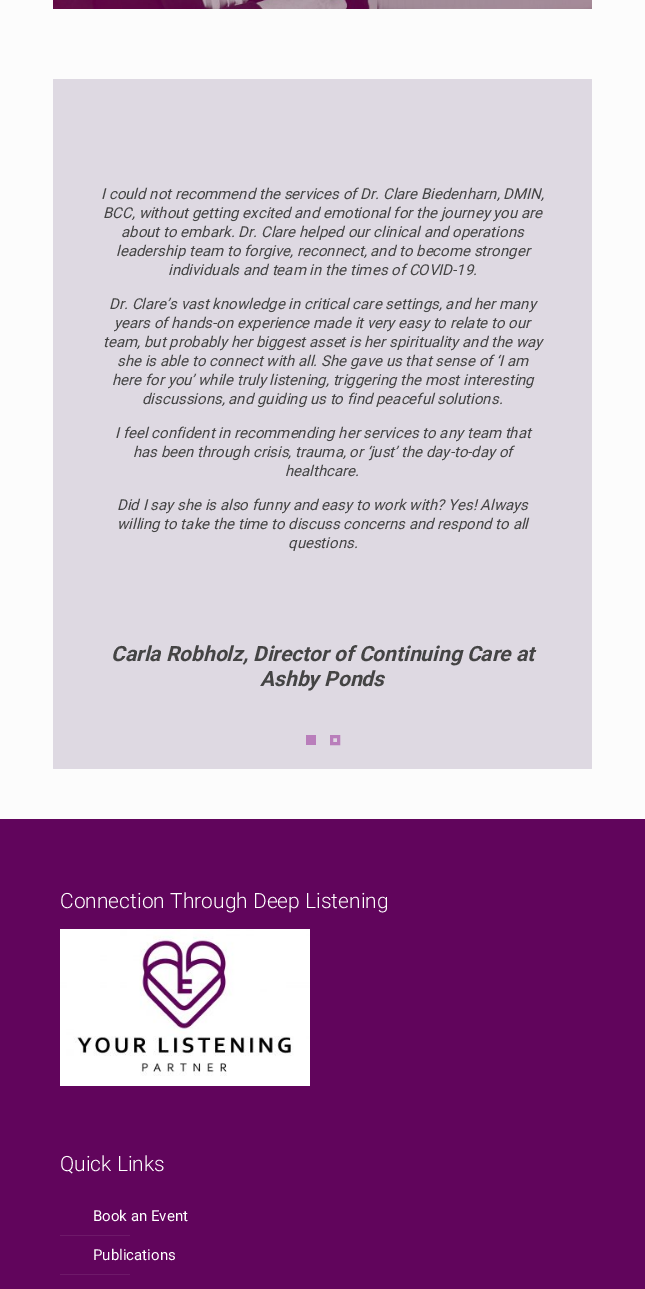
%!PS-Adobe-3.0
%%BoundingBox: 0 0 645 1289
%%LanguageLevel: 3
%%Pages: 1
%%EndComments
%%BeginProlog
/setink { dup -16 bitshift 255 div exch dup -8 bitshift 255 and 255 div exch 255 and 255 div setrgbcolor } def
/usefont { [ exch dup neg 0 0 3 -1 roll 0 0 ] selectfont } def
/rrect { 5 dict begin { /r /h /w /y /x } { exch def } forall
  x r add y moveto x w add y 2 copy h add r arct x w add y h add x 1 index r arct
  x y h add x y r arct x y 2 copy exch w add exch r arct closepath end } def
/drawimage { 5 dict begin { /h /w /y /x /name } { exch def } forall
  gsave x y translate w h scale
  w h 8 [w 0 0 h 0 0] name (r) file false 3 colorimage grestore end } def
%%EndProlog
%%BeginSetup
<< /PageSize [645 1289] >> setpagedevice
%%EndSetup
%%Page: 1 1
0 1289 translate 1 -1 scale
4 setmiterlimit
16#FCFCFC setink
0 0 645 1289 rectfill
(img1.raw) 53 0 539 9 drawimage
16#DED9E2 setink
53 79 539 690 1 rrect fill
/Roboto-Italic 15 usefont
16#444444 setink
[
    [(I could not recommend the services of Dr. Clare Biedenharn, DMIN,) 101 199]
    [(BCC, without getting excited and emotional for the journey you are) 103 218]
    [(about to embark. Dr. Clare helped our clinical and operations) 121 237]
    [(leadership team to forgive, reconnect, and to become stronger) 116 256]
    [(individuals and team in the times of COVID-19.) 168 275]
    [(Dr. Clare’s vast knowledge in critical care settings, and her many) 109 309]
    [(years of hands-on experience made it very easy to relate to our) 114 328]
    [(team, but probably her biggest asset is her spirituality and the way) 103 347]
    [(she is able to connect with all. She gave us that sense of ‘I am) 117 366]
    [(here for you’ while truly listening, triggering the most interesting) 112 385]
    [(discussions, and guiding us to find peaceful solutions.) 142 404]
    [(I feel confident in recommending her services to any team that) 115 438]
    [(has been through crisis, trauma, or ‘just’ the day-to-day of) 133 457]
    [(healthcare.) 285 476]
    [(Did I say she is also funny and easy to work with? Yes! Always) 117 510]
    [(willing to take the time to discuss concerns and respond to all) 117 529]
    [(questions.) 288 548]
] { aload pop moveto show } forall
/Roboto-BoldItalic 21 usefont
111 661 moveto (Carla Robholz, Director of Continuing Care at) show
260 686 moveto (Ashby Ponds) show
16#B97EBB setink
306 735 10 10 rectfill
3 setlinewidth
331.5 736.5 7 7 rectstroke
16#61055C setink
0 819 645 470 rectfill
/Roboto-Light 21 usefont
16#FFFFFF setink
60 908 moveto (Connection Through Deep Listening) show
(img2.raw) 60 929 250 157 drawimage
60 1171 moveto (Quick Links) show
/Roboto-Regular 15 usefont
93 1221 moveto (Book an Event) show
16#6E1969 setink
60 1235 70 1 rectfill
16#FFFFFF setink
93 1260 moveto (Publications) show
16#6E1969 setink
60 1274 70 1 rectfill
showpage
%%EOF
